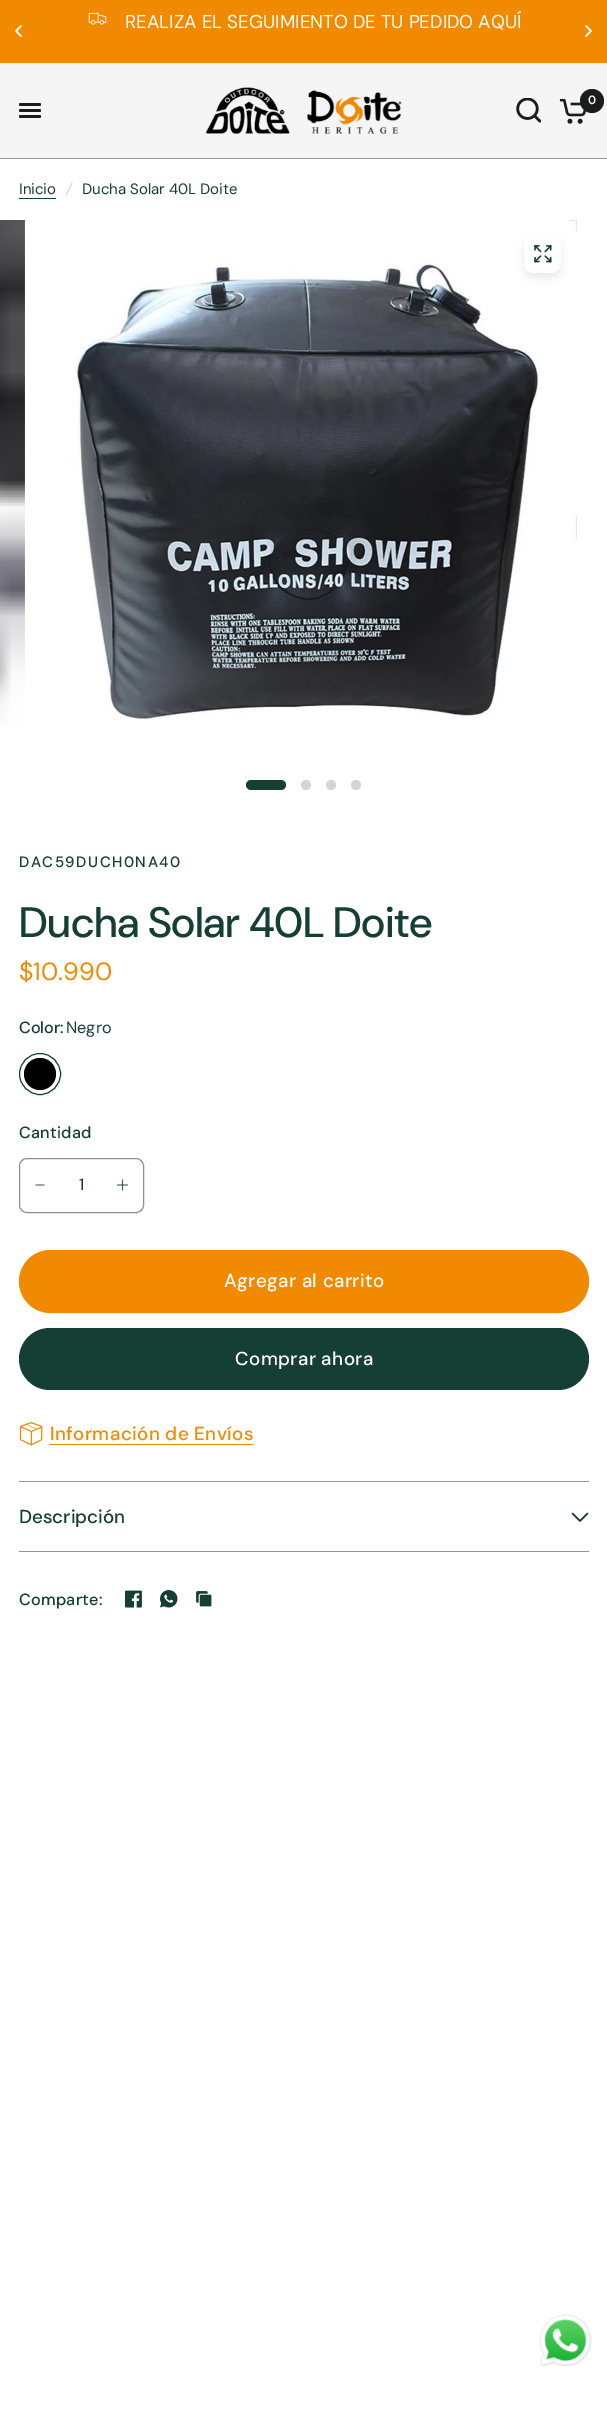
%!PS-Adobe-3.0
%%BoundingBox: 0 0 607 2428
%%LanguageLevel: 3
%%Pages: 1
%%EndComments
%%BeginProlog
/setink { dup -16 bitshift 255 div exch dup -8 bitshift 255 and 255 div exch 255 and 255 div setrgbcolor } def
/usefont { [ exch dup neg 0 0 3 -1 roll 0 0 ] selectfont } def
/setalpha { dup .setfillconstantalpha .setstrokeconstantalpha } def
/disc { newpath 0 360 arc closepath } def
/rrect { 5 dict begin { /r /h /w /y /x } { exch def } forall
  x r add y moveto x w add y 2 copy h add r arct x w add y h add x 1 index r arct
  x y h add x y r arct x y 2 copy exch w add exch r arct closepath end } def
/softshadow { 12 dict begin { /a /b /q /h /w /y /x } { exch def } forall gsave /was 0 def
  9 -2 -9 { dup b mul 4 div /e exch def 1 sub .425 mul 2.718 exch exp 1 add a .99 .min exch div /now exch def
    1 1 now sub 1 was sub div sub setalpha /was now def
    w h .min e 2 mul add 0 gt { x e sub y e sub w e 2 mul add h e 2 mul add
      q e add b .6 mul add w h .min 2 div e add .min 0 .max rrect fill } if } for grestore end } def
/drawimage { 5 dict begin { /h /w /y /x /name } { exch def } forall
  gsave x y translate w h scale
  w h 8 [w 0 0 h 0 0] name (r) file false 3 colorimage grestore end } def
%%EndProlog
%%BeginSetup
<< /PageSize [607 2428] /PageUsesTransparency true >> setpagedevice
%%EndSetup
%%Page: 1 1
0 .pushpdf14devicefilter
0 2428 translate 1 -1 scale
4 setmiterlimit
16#FFFFFF setink
0 0 607 2428 rectfill
16#F18A00 setink
0 0 607 63 rectfill
16#FFFFFF setink
1.5 setlinewidth
1 setlinecap
1 setlinejoin
21 26 moveto 16 31 lineto 21 36 lineto stroke
(img1.raw) 88 12 19 13 drawimage
/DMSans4-Regular 18.7 usefont
125 28 moveto (REALIZA EL SEGUIMIENTO DE TU PEDIDO AQUÍ) show
586 26 moveto 591 31 lineto 586 36 lineto stroke
16#F5F5F5 setink
0 63 607 95 rectfill
(img2.raw) 205 87 197 47 drawimage
(img3.raw) 516 98 25 25 drawimage
(img4.raw) 559 99 27 25 drawimage
16#1A1C1D setink
592 101 12 disc fill
/DMSans-SemiBold 12 usefont
16#F5F5F5 setink
588 104 moveto (0) show
16#1A1C1D setink
19 103 22 3 1.5 rrect fill
19 109 22 3 1.5 rrect fill
19 115 22 3 1.5 rrect fill
16#959595 setink
0 158 607 1 rectfill
/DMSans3-Regular 15 usefont
16#153E35 setink
19 194 moveto (Inicio) show
19 198 37 1 rectfill
/DMSans-Italic 15 usefont
16#D0D8D7 setink
66 194 moveto (/) show
/DMSans3-Regular 15 usefont
16#153E35 setink
82 194 moveto (Ducha Solar 40L Doite) show
(img5.raw) 0 220 25 505 drawimage
(img6.raw) 31 220 546 500 drawimage
16#000000 setink
524 240 37 38 10 4 0.08 softshadow
16#FFFFFF setink
524 235 37 38 10 rrect fill
(img7.raw) 534 245 18 18 drawimage
16#153E35 setink
246 780 40 10 5 rrect fill
16#D0D8D7 setink
306 785 5 disc fill
331 785 5 disc fill
356 785 5 disc fill
/DMSans-Medium 15 usefont
16#153E35 setink
19 867 moveto 1.5 0 (DAC59DUCH0NA40) ashow
/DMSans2-Medium 42.5 usefont
19 937 moveto -0.4 0 (Ducha Solar 40L Doite) ashow
/DMSans-Regular 25 usefont
16#F18A00 setink
19 980 moveto ($10.990) show
/DMSans3-Medium 16.25 usefont
16#153E35 setink
19 1033 moveto (Color:) show
/DMSans2-Regular 16.25 usefont
66 1033 moveto (Negro) show
1 setlinewidth
0 setlinecap
0 setlinejoin
40 1074 20.5 disc stroke
16#000000 setink
40 1074 16 disc fill
0.1 setalpha
3 setlinewidth
40 1074 14.5 disc stroke
/DMSans3-Medium 16.25 usefont
1 setalpha
16#153E35 setink
19 1138 moveto 0.25 0 (Cantidad) ashow
16#909090 setink
1 setlinewidth
19.5 1158.5 124 54 7.5 rrect stroke
16#738B86 setink
1.2 setlinewidth
1 setlinecap
1 setlinejoin
36 1185 moveto 44 1185 lineto stroke
/DMSans2-Regular 16.25 usefont
16#153E35 setink
79 1190 moveto (1) show
(img8.raw) 117 1179 11 12 drawimage
16#F18A00 setink
19 1250 570 63 31.5 rrect fill
/DMSans4-Medium 18.75 usefont
16#FFFFFF setink
224 1287 moveto 0.4 0 (Agregar al carrito) ashow
16#153E35 setink
19 1328 570 62 31 rrect fill
16#FFFFFF setink
235 1365 moveto 0.4 0 (Comprar ahora) ashow
(img9.raw) 19 1422 24 24 drawimage
16#F18A00 setink
50 1440 moveto 0.4 0 (Información de Envíos) ashow
[
    [50 1444 203 1 16#F18A00]
    [19 1481 570 1 16#959595]
    [19 1551 570 1 16#959595]
] { aload pop setink rectfill } forall
16#153E35 setink
19 1523 moveto (Descripción) show
1.6 setlinewidth
587.5 1513.5 moveto 580 1521 lineto 572.5 1513.5 lineto stroke
/DMSans3-Medium 16.25 usefont
19 1605 moveto 0.25 0 (Comparte:) ashow
(img10.raw) 125 1590 17 18 drawimage
(img11.raw) 160 1590 18 18 drawimage
(img12.raw) 196 1591 16 16 drawimage
(img13.raw) 539 2314 53 53 drawimage
.poppdf14devicefilter showpage
%%EOF
